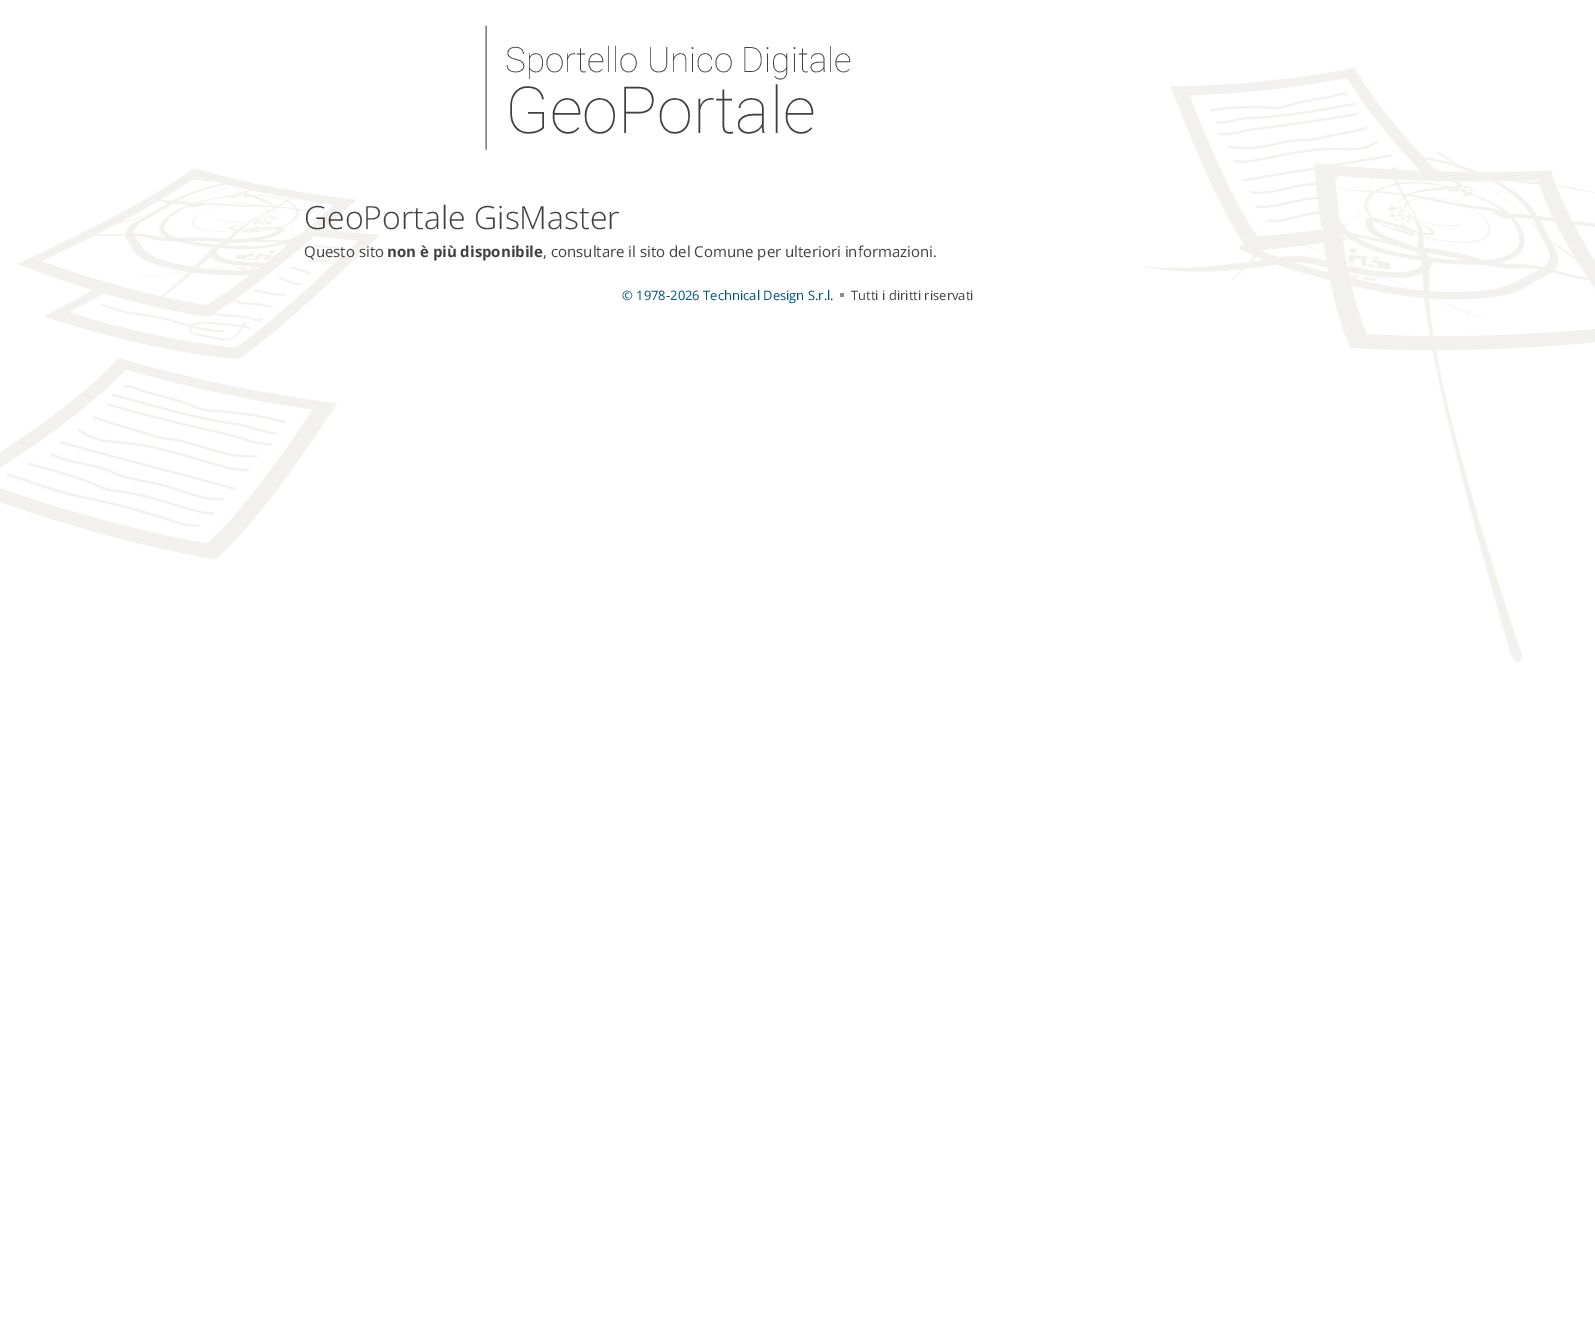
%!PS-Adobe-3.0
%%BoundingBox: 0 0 1595 1319
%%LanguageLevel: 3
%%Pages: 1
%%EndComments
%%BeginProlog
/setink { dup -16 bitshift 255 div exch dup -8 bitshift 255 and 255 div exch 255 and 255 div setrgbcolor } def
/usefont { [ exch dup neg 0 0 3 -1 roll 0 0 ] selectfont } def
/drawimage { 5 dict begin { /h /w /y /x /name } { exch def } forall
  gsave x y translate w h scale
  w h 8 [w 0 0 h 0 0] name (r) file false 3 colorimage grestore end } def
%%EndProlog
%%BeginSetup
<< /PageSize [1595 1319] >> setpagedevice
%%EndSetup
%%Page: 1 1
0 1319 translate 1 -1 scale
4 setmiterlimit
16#FFFFFF setink
0 0 1595 1319 rectfill
(img1.raw) 0 68 1595 594 drawimage
(img2.raw) 485 25 2 125 drawimage
/Heebo-Thin 35 usefont
16#404040 setink
505 72 moveto (Sportello Unico Digitale) show
/Heebo-Thin 65 usefont
505 133 moveto (GeoPortale) show
/OpenSans-Light 32 usefont
304 229 moveto (GeoPortale GisMaster) show
/OpenSans-Regular 15 usefont
304 257 moveto (Questo sito) show
/OpenSans-Bold 15 usefont
387 257 moveto (non è più disponibile) show
/OpenSans-Regular 15 usefont
543 257 moveto (, consultare il sito del Comune per ulteriori informazioni.) show
/OpenSans-Regular 13 usefont
16#005189 setink
622 300 moveto (© 1978-2026 Technical Design S.r.l.) show
16#8C8C8C setink
840 293 4 4 rectfill
16#404040 setink
851 300 moveto (Tutti i diritti riservati) show
showpage
%%EOF
